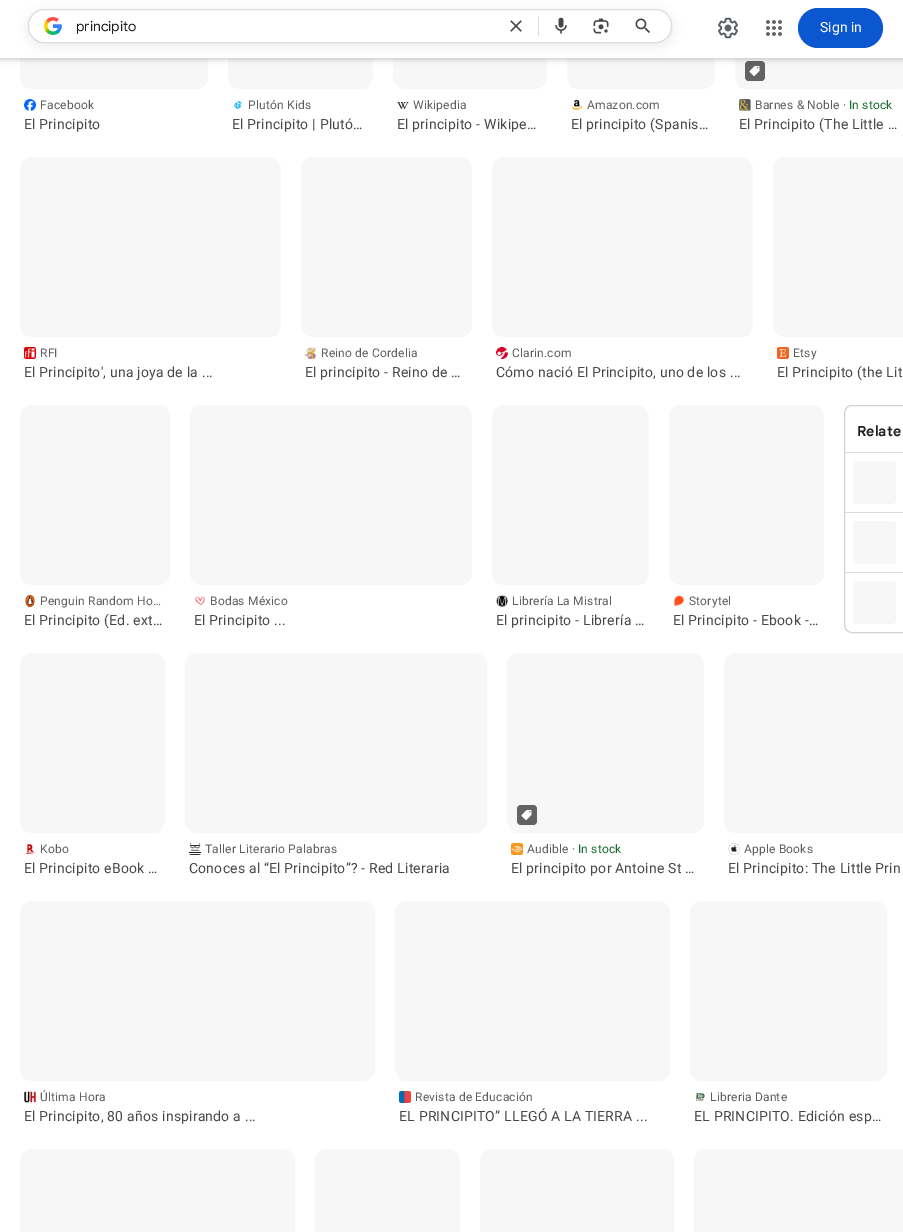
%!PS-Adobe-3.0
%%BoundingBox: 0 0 903 1232
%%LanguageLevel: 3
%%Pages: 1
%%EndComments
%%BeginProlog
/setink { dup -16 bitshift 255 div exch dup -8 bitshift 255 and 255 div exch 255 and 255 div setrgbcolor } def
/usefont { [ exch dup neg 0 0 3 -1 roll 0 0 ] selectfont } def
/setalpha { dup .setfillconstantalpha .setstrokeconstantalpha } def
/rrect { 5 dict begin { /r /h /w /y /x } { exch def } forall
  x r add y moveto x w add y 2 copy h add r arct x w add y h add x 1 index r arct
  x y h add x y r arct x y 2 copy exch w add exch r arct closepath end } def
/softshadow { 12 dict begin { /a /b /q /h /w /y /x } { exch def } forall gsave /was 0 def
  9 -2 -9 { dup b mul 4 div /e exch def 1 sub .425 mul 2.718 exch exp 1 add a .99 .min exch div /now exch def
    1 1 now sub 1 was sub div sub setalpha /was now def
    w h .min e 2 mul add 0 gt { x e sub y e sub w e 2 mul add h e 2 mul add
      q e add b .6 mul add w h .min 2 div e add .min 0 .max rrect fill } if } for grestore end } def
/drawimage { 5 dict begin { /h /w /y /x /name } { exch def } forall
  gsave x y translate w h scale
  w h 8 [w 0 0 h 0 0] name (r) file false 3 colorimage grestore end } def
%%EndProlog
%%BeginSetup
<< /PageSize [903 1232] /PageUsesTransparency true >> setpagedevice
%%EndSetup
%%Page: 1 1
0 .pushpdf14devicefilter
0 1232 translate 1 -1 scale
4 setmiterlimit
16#FFFFFF setink
0 0 903 1232 rectfill
16#F7F7F7 setink
20 -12 188 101 12 rrect fill
228 -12 145 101 12 rrect fill
393 -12 154 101 12 rrect fill
567 -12 148 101 12 rrect fill
735 -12 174 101 12 rrect fill
16#636363 setink
745 61 20 20 4 rrect fill
(img12.raw) 749 66 11 10 drawimage
16#202124 setink
0 -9 903 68 0 3 0.28 softshadow
16#FFFFFF setink
0 0 903 58 rectfill
16#1F1F1F setink
28 12 644 34 16 5 0.08 softshadow
16#FFFFFF setink
28.5 9.5 643 33 15.5 rrect gsave fill grestore
16#DADCE0 setink
stroke
(img1.raw) 44 17 18 18 drawimage
/GoogleSans-Regular 14 usefont
16#1F1F1F setink
76 31 moveto (principito) show
(img2.raw) 510 20 12 12 drawimage
16#DADCE0 setink
538 16 1 20 rectfill
(img3.raw) 555 17 12 17 drawimage
(img4.raw) 593 18 16 16 drawimage
(img5.raw) 635 18 15 15 drawimage
(img6.raw) 718 17 20 22 drawimage
(img7.raw) 766 20 16 16 drawimage
16#0B57D0 setink
798 8 85 40 20 rrect fill
/Roboto-Regular 14 usefont
16#FFFFFF setink
820 32 moveto (Sign in) show
(img8.raw) 24 99 12 12 drawimage
/Roboto-Regular 12 usefont
16#5E5E5E setink
40 109 moveto 0.2 0 (Facebook) ashow
/Roboto-Regular 14 usefont
16#474747 setink
24 129 moveto 0.2 0 (El Principito) ashow
(img9.raw) 234 101 8 8 drawimage
/Roboto-Regular 12 usefont
16#5E5E5E setink
248 109 moveto 0.2 0 (Plutón Kids) ashow
/Roboto-Regular 14 usefont
16#474747 setink
232 129 moveto 0.2 0 (El Principito | Plutó…) ashow
(img10.raw) 397 102 12 8 drawimage
/Roboto-Regular 12 usefont
16#5E5E5E setink
413 109 moveto 0.2 0 (Wikipedia) ashow
/Roboto-Regular 14 usefont
16#474747 setink
397 129 moveto 0.2 0 (El principito - Wikipe…) ashow
(img11.raw) 571 99 12 12 drawimage
/Roboto-Regular 12 usefont
16#5E5E5E setink
587 109 moveto 0.2 0 (Amazon.com) ashow
/Roboto-Regular 14 usefont
16#474747 setink
571 129 moveto 0.2 0 (El principito \(Spanis…) ashow
(img13.raw) 739 99 12 12 drawimage
/Roboto-Regular 12 usefont
16#5E5E5E setink
755 109 moveto 0.2 0 (Barnes & Noble ·) ashow
16#146C2E setink
849 109 moveto 0.2 0 (In stock) ashow
/Roboto-Regular 14 usefont
16#474747 setink
739 129 moveto 0.2 0 (El Principito \(The Little …) ashow
16#F7F7F7 setink
20 157 261 180 12 rrect fill
(img14.raw) 24 347 12 12 drawimage
/Roboto-Regular 12 usefont
16#5E5E5E setink
40 357 moveto 0.2 0 (RFI) ashow
/Roboto-Regular 14 usefont
16#474747 setink
24 377 moveto 0.2 0 (El Principito', una joya de la ...) ashow
16#F7F7F7 setink
301 157 171 180 12 rrect fill
(img15.raw) 305 347 12 12 drawimage
/Roboto-Regular 12 usefont
16#5E5E5E setink
321 357 moveto 0.2 0 (Reino de Cordelia) ashow
/Roboto-Regular 14 usefont
16#474747 setink
305 377 moveto 0.2 0 (El principito - Reino de …) ashow
16#F7F7F7 setink
492 157 261 180 12 rrect fill
(img16.raw) 496 347 12 12 drawimage
/Roboto-Regular 12 usefont
16#5E5E5E setink
512 357 moveto 0.2 0 (Clarin.com) ashow
/Roboto-Regular 14 usefont
16#474747 setink
496 377 moveto 0.2 0 (Cómo nació El Principito, uno de los ...) ashow
16#F7F7F7 setink
773 157 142 180 12 rrect fill
(img17.raw) 777 347 12 12 drawimage
/Roboto-Regular 12 usefont
16#5E5E5E setink
793 357 moveto 0.2 0 (Etsy) ashow
/Roboto-Regular 14 usefont
16#474747 setink
777 377 moveto 0.2 0 (El Principito \(the Lit) ashow
16#D2D2D2 setink
844.5 405.5 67 227 7.5 rrect stroke
/GoogleSans-Bold 14 usefont
16#1F1F1F setink
857 436 moveto (Relate) show
16#DADCE0 setink
845 452 58 1 rectfill
16#F7F7F7 setink
853 461 43 43 4 rrect fill
16#DADCE0 setink
845 512 58 1 rectfill
16#F7F7F7 setink
853 521 43 43 4 rrect fill
16#DADCE0 setink
845 572 58 1 rectfill
16#F7F7F7 setink
853 581 43 43 4 rrect fill
20 405 150 180 12 rrect fill
(img18.raw) 25 595 10 12 drawimage
/Roboto-Regular 12 usefont
16#5E5E5E setink
40 605 moveto 0.2 0 (Penguin Random Ho…) ashow
/Roboto-Regular 14 usefont
16#474747 setink
24 625 moveto 0.2 0 (El Principito \(Ed. ext…) ashow
16#F7F7F7 setink
190 405 282 180 12 rrect fill
(img19.raw) 195 596 10 10 drawimage
/Roboto-Regular 12 usefont
16#5E5E5E setink
210 605 moveto 0.2 0 (Bodas México) ashow
/Roboto-Regular 14 usefont
16#474747 setink
194 625 moveto 0.2 0 (El Principito ...) ashow
16#F7F7F7 setink
492 405 157 180 12 rrect fill
(img20.raw) 496 595 12 12 drawimage
/Roboto-Regular 12 usefont
16#5E5E5E setink
512 605 moveto 0.2 0 (Librería La Mistral) ashow
/Roboto-Regular 14 usefont
16#474747 setink
496 625 moveto 0.2 0 (El principito - Librería …) ashow
16#F7F7F7 setink
669 405 155 180 12 rrect fill
(img21.raw) 673 595 11 12 drawimage
/Roboto-Regular 12 usefont
16#5E5E5E setink
689 605 moveto 0.2 0 (Storytel) ashow
/Roboto-Regular 14 usefont
16#474747 setink
673 625 moveto 0.2 0 (El Principito - Ebook -…) ashow
16#F7F7F7 setink
20 653 145 180 12 rrect fill
(img22.raw) 25 843 11 12 drawimage
/Roboto-Regular 12 usefont
16#5E5E5E setink
40 853 moveto 0.2 0 (Kobo) ashow
/Roboto-Regular 14 usefont
16#474747 setink
24 873 moveto 0.2 0 (El Principito eBook …) ashow
16#F7F7F7 setink
185 653 302 180 12 rrect fill
(img23.raw) 189 843 12 12 drawimage
/Roboto-Regular 12 usefont
16#5E5E5E setink
205 853 moveto 0.2 0 (Taller Literario Palabras) ashow
/Roboto-Regular 14 usefont
16#474747 setink
189 873 moveto 0.2 0 (Conoces al “El Principito”? - Red Literaria) ashow
16#F7F7F7 setink
507 653 197 180 12 rrect fill
16#636363 setink
517 805 20 20 4 rrect fill
(img24.raw) 521 810 11 10 drawimage
(img25.raw) 511 843 12 12 drawimage
/Roboto-Regular 12 usefont
16#5E5E5E setink
527 853 moveto 0.2 0 (Audible ·) ashow
16#146C2E setink
578 853 moveto 0.2 0 (In stock) ashow
/Roboto-Regular 14 usefont
16#474747 setink
511 873 moveto 0.2 0 (El principito por Antoine St …) ashow
16#F7F7F7 setink
724 653 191 180 12 rrect fill
(img26.raw) 728 843 12 12 drawimage
/Roboto-Regular 12 usefont
16#5E5E5E setink
744 853 moveto 0.2 0 (Apple Books) ashow
/Roboto-Regular 14 usefont
16#474747 setink
728 873 moveto 0.2 0 (El Principito: The Little Prin) ashow
16#F7F7F7 setink
20 901 355 180 12 rrect fill
(img27.raw) 24 1091 12 12 drawimage
/Roboto-Regular 12 usefont
16#5E5E5E setink
40 1101 moveto 0.2 0 (Última Hora) ashow
/Roboto-Regular 14 usefont
16#474747 setink
24 1121 moveto 0.2 0 (El Principito, 80 años inspirando a ...) ashow
16#F7F7F7 setink
395 901 275 180 12 rrect fill
(img28.raw) 399 1091 12 12 drawimage
/Roboto-Regular 12 usefont
16#5E5E5E setink
415 1101 moveto 0.2 0 (Revista de Educación) ashow
/Roboto-Regular 14 usefont
16#474747 setink
399 1121 moveto 0.2 0 (EL PRINCIPITO” LLEGÓ A LA TIERRA ...) ashow
16#F7F7F7 setink
690 901 197 180 12 rrect fill
(img29.raw) 695 1093 10 8 drawimage
/Roboto-Regular 12 usefont
16#5E5E5E setink
710 1101 moveto 0.2 0 (Libreria Dante) ashow
/Roboto-Regular 14 usefont
16#474747 setink
694 1121 moveto 0.2 0 (EL PRINCIPITO. Edición esp…) ashow
16#F7F7F7 setink
20 1149 275 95 12 rrect fill
315 1149 145 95 12 rrect fill
480 1149 194 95 12 rrect fill
694 1149 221 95 12 rrect fill
.poppdf14devicefilter showpage
%%EOF
